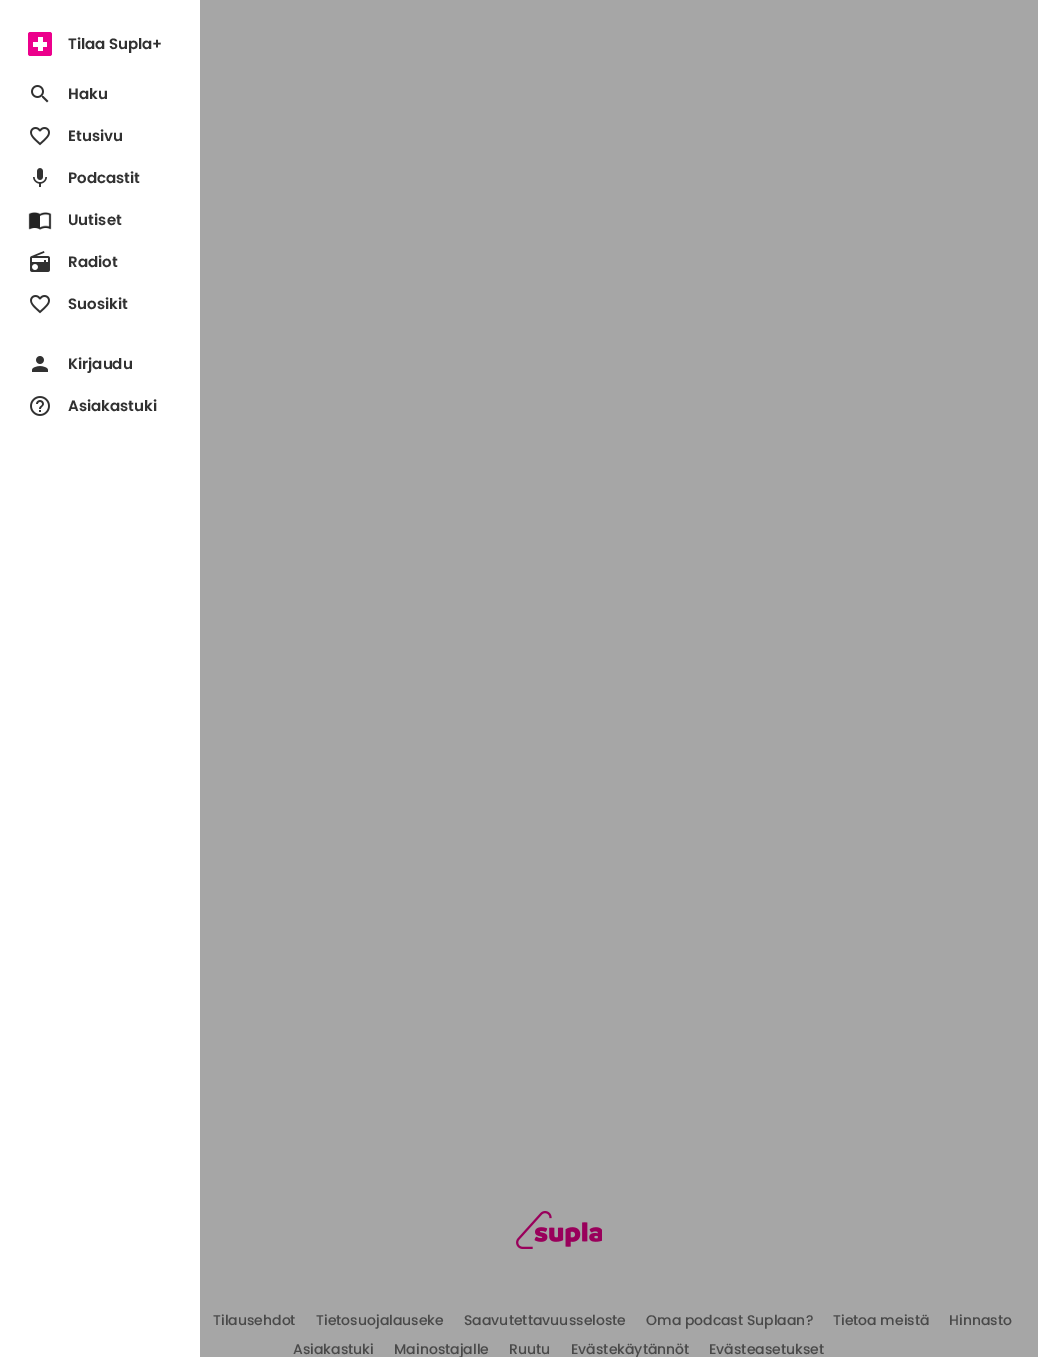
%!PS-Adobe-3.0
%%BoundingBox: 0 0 1038 1357
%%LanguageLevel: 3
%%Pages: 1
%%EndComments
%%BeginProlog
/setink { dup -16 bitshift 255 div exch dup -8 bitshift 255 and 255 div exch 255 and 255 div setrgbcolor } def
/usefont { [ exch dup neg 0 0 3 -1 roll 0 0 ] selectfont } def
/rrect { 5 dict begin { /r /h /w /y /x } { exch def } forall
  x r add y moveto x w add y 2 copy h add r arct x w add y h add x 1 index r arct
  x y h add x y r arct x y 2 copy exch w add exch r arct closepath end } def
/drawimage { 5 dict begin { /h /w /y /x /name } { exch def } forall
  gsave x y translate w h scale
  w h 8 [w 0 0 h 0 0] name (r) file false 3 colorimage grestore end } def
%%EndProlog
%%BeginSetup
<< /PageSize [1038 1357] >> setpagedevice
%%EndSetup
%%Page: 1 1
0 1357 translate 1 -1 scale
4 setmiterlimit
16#A6A6A6 setink
0 0 1038 1357 rectfill
16#FFFFFF setink
0 0 200 1357 rectfill
16#EC008C setink
28 32 24 24 2.5 rrect fill
16#FFFFFF setink
38 37 5 14 rectfill
33 42 14 5 rectfill
/Poppins-SemiBold 15 usefont
16#313131 setink
68 49 moveto (Tilaa Supla+) show
(img1.raw) 31 85 18 18 drawimage
68 99 moveto (Haku) show
(img2.raw) 30 127 20 19 drawimage
68 141 moveto (Etusivu) show
(img3.raw) 33 168 14 19 drawimage
68 183 moveto (Podcastit) show
(img4.raw) 28 212 24 18 drawimage
68 225 moveto (Uutiset) show
(img5.raw) 30 251 20 21 drawimage
68 267 moveto (Radiot) show
(img2.raw) 30 295 20 19 drawimage
68 309 moveto (Suosikit) show
(img6.raw) 32 356 16 16 drawimage
68 369 moveto (Kirjaudu) show
(img7.raw) 30 396 20 20 drawimage
68 411 moveto (Asiakastuki) show
(img8.raw) 516 1211 86 38 drawimage
/Poppins-Medium 14 usefont
16#494949 setink
[
    [(Tilausehdot) 213 1325]
    [(Tietosuojalauseke) 316 1325]
    [(Saavutettavuusseloste) 464 1325]
    [(Oma podcast Suplaan?) 646 1325]
    [(Tietoa meistä) 833 1325]
    [(Hinnasto) 949 1325]
    [(Asiakastuki) 293 1354]
    [(Mainostajalle) 394 1354]
    [(Ruutu) 509 1354]
    [(Evästekäytännöt) 571 1354]
    [(Evästeasetukset) 709 1354]
] { aload pop moveto show } forall
showpage
%%EOF
